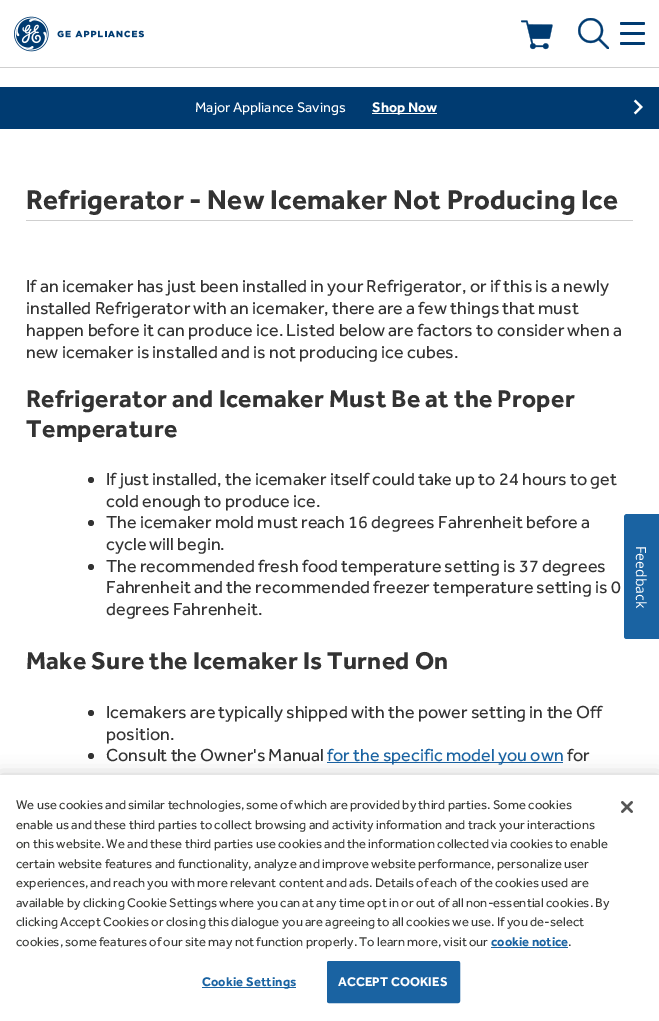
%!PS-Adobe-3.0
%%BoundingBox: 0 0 659 1021
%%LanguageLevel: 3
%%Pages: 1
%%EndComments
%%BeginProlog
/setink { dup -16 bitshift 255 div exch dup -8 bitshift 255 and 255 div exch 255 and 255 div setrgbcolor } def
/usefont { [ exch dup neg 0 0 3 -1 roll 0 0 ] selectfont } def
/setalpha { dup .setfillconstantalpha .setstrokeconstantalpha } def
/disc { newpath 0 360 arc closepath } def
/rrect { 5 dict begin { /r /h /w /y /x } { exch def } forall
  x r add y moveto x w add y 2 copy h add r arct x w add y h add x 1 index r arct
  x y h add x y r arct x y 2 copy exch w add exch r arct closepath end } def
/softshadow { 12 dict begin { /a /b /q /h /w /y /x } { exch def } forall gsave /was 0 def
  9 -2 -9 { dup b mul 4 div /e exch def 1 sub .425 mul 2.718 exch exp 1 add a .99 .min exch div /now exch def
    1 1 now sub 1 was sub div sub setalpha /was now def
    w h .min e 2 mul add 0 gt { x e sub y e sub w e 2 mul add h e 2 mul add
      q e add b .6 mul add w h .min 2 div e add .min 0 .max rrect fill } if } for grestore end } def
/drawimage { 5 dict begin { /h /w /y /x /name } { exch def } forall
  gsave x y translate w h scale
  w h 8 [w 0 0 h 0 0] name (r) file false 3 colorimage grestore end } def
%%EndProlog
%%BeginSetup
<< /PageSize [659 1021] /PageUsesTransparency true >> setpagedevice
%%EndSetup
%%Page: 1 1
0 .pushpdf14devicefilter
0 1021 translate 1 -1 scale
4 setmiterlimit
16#FFFFFF setink
0 0 659 1021 rectfill
16#CFCFCF setink
0 67 659 1 rectfill
(img1.raw) 14 16 130 36 drawimage
16#003B71 setink
620 22 25 3 1.5 rrect fill
620 32 25 3 1.5 rrect fill
620 42 25 3 1.5 rrect fill
(img2.raw) 521 20 32 30 drawimage
(img3.raw) 578 18 31 31 drawimage
0 87 659 42 rectfill
/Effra-Regular 14.4 usefont
16#FFFFFF setink
195 112 moveto (Major Appliance Savings) show
372 113 65 1 rectfill
/Effra-Bold 14.4 usefont
372 112 moveto (Shop Now) show
(img4.raw) 633 99 10 16 drawimage
16#CFCFCF setink
26 220 607 1 rectfill
/Effra-Bold 28 usefont
16#333333 setink
26 209 moveto 0.25 0 (Refrigerator - New Icemaker Not Producing Ice) ashow
/Effra-Regular 18 usefont
[
    [(If an icemaker has just been installed in your Refrigerator, or if this is a newly) 26 292]
    [(installed Refrigerator with an icemaker, there are a few things that must) 26 314]
    [(happen before it can produce ice. Listed below are factors to consider when a) 26 336]
    [(new icemaker is installed and is not producing ice cubes.) 26 358]
] { aload pop moveto show } forall
/Effra-Bold 25 usefont
26 407 moveto 0.25 0 (Refrigerator and Icemaker Must Be at the Proper) ashow
26 437 moveto 0.25 0 (Temperature) ashow
91 480 3 disc fill
/Effra-Regular 18 usefont
106 485 moveto (If just installed, the icemaker itself could take up to 24 hours to get) show
106 507 moveto (cold enough to produce ice.) show
91 523 3 disc fill
106 528 moveto (The icemaker mold must reach 16 degrees Fahrenheit before a) show
106 550 moveto (cycle will begin.) show
91 567 3 disc fill
[
    [(The recommended fresh food temperature setting is 37 degrees) 106 572]
    [(Fahrenheit and the recommended freezer temperature setting is 0) 106 593]
    [(degrees Fahrenheit.) 106 615]
] { aload pop moveto show } forall
/Effra-Bold 25 usefont
26 669 moveto 0.25 0 (Make Sure the Icemaker Is Turned On) ashow
91 713 3 disc fill
/Effra-Regular 18 usefont
106 718 moveto (Icemakers are typically shipped with the power setting in the Off) show
106 740 moveto (position.) show
91 756 3 disc fill
106 761 moveto (Consult the Owner's Manual) show
16#1A63A2 setink
327 762 236 1 rectfill
327 761 moveto (for the specific model you own) show
16#333333 setink
567 761 moveto (for) show
16#1A63A2 setink
659 514 moveto 659 639 lineto 627 639 lineto 625 639 624 638 624 636 curveto 624 517 lineto 624 516 625 514 627 514 curveto closepath fill
/OpenSans-Regular 14 usefont
16#FFFFFF setink
gsave 636 546 translate 90 rotate 0 0 moveto (Feedback) show grestore
16#000000 setink
0 775 659 246 0 9 0.2 softshadow
16#FFFFFF setink
0 775 659 246 rectfill
/Effra-Regular 13 usefont
16#393A37 setink
[
    [(We use cookies and similar technologies, some of which are provided by third parties. Some cookies) 16 809]
    [(enable us and these third parties to collect browsing and activity information and track your interactions) 16 829]
    [(on this website. We and these third parties use cookies and the information collected via cookies to enable) 16 848]
    [(certain website features and functionality, analyze and improve website performance, personalize user) 16 868]
    [(experiences, and reach you with more relevant content and ads. Details of each of the cookies used are) 16 887]
    [(available by clicking Cookie Settings where you can at any time opt in or out of all non-essential cookies. By) 16 907]
    [(clicking Accept Cookies or closing this dialogue you are agreeing to all cookies we use. If you de-select) 16 926]
    [(cookies, some features of our site may not function properly. To learn more, visit our) 16 946]
] { aload pop moveto show } forall
/Effra-Bold 13 usefont
16#1A63A2 setink
491 946 moveto (cookie notice) show
491 947 77 1 rectfill
/Effra-Regular 13 usefont
16#393A37 setink
568 946 moveto (.) show
16#1A63A2 setink
202 987 94 1 rectfill
/Effra-Bold 13 usefont
202 986 moveto 0.1 0 (Cookie Settings) ashow
327.5 961.5 132 41 1.5 rrect gsave fill grestore
stroke
16#FFFFFF setink
338 986 moveto 0.1 0 (ACCEPT COOKIES) ashow
(img5.raw) 621 801 12 12 drawimage
.poppdf14devicefilter showpage
%%EOF
